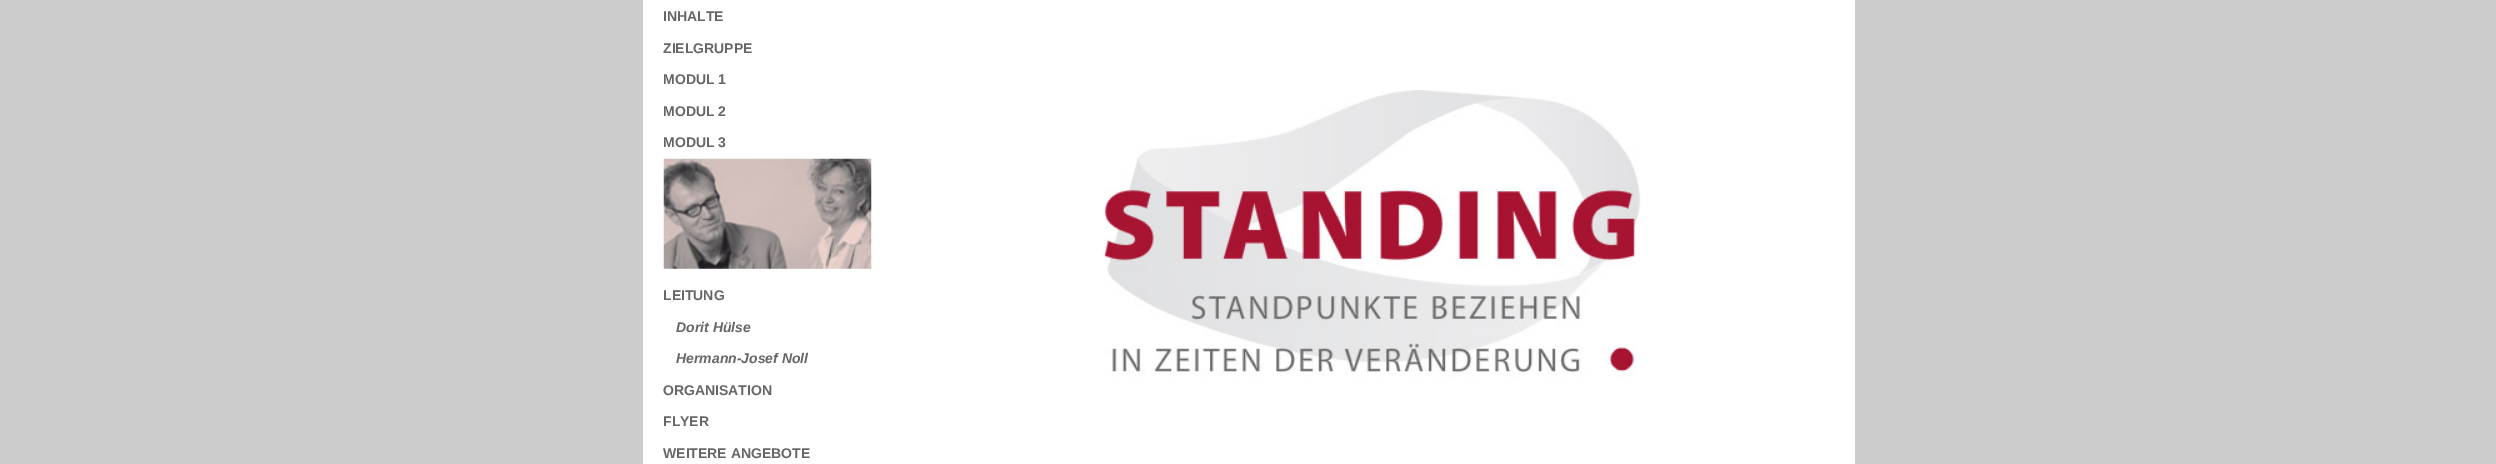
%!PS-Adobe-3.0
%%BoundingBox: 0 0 2496 464
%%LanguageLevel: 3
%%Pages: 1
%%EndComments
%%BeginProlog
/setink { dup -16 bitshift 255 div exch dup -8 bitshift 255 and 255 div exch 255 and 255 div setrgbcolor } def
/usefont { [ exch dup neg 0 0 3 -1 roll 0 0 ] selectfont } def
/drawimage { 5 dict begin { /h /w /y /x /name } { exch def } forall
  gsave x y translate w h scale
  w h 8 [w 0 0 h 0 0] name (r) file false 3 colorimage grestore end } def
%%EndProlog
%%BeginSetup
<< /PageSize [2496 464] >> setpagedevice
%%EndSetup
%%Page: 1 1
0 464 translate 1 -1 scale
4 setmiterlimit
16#CCCCCC setink
0 0 2496 464 rectfill
16#FFFFFF setink
643 0 1212 464 rectfill
/LiberationSans-Bold 14 usefont
16#666666 setink
[
    [(INHALTE) 663 21]
    [(ZIELGRUPPE) 663 53]
    [(MODUL 1) 663 84]
    [(MODUL 2) 663 116]
    [(MODUL 3) 663 147]
] { aload pop moveto show } forall
(img1.raw) 663 158 209 111 drawimage
663 300 moveto (LEITUNG) show
/LiberationSans-BoldItalic 14 usefont
676 332 moveto (Dorit Hülse) show
676 363 moveto (Hermann-Josef Noll) show
/LiberationSans-Bold 14 usefont
[
    [(ORGANISATION) 663 395]
    [(FLYER) 663 426]
    [(WEITERE ANGEBOTE) 663 458]
] { aload pop moveto show } forall
(img2.raw) 1102 90 539 288 drawimage
showpage
%%EOF
